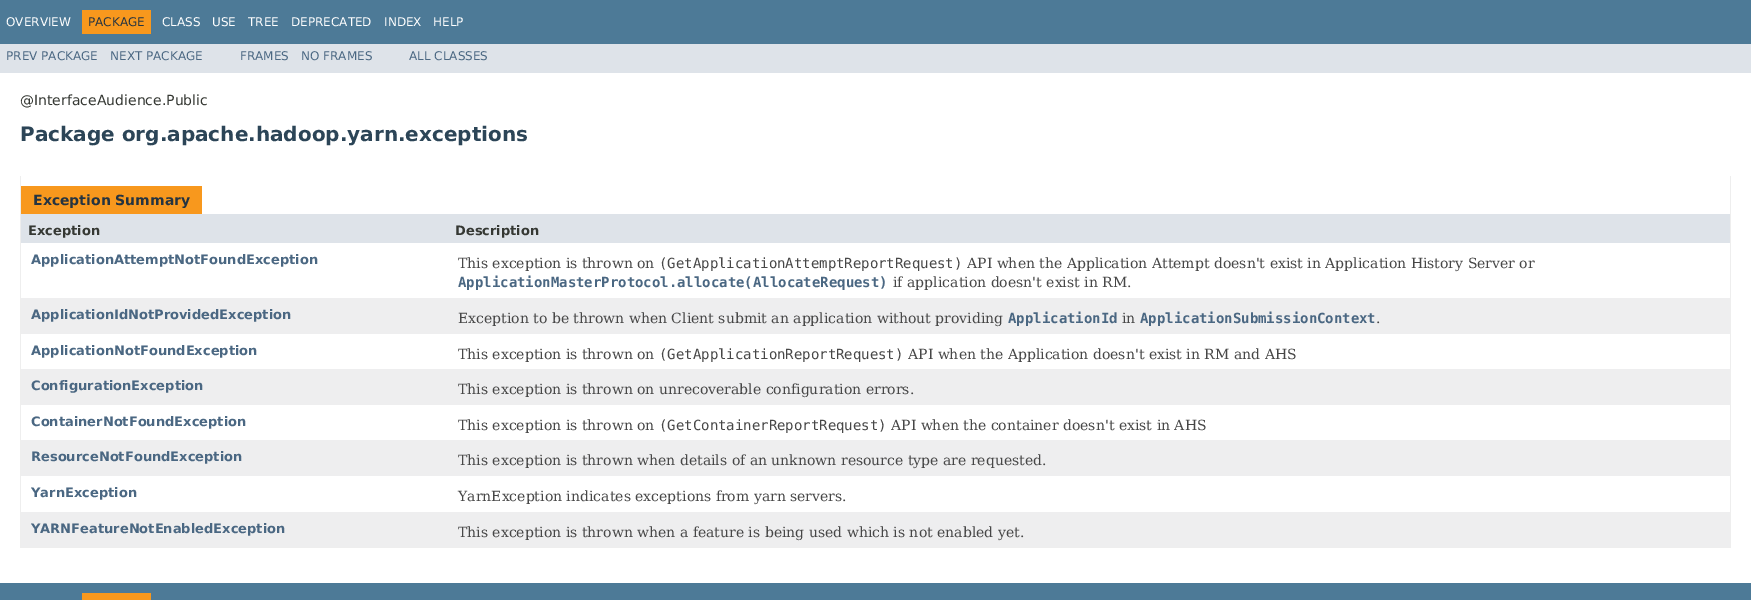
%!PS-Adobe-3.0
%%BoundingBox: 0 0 1751 600
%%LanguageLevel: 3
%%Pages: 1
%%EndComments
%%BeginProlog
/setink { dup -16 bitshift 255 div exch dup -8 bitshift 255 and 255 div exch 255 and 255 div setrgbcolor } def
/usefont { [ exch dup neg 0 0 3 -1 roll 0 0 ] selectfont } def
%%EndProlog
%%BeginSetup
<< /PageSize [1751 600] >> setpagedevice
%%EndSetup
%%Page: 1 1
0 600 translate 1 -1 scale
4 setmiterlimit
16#FFFFFF setink
0 0 1751 600 rectfill
16#4D7A97 setink
0 0 1751 44 rectfill
/DejaVuSans-Regular 12 usefont
16#FFFFFF setink
6 26 moveto (OVERVIEW) show
16#F8981D setink
82 10 69 24 rectfill
16#253441 setink
88 26 moveto (PACKAGE) show
16#FFFFFF setink
[
    [(CLASS) 162 26]
    [(USE) 212 26]
    [(TREE) 248 26]
    [(DEPRECATED) 291 26]
    [(INDEX) 384 26]
    [(HELP) 433 26]
] { aload pop moveto show } forall
16#DEE3E9 setink
0 44 1751 29 rectfill
16#4A6782 setink
[
    [(PREV PACKAGE) 6 60]
    [(NEXT PACKAGE) 110 60]
    [(FRAMES) 240 60]
    [(NO FRAMES) 301 60]
    [(ALL CLASSES) 409 60]
] { aload pop moveto show } forall
/DejaVuSans-Regular 14 usefont
16#353833 setink
20 105 moveto (@InterfaceAudience.Public) show
/DejaVuSans-Bold 20 usefont
16#2C4557 setink
20 141 moveto (Package org.apache.hadoop.yarn.exceptions) show
[
    [1730 176 1 372 16#EEEEEE]
    [20 547 1711 1 16#EEEEEE]
    [20 176 1 372 16#EEEEEE]
    [21 186 181 28 16#F8981D]
] { aload pop setink rectfill } forall
/DejaVuSans-Bold 14 usefont
16#253441 setink
33 205 moveto (Exception Summary) show
16#DEE3E9 setink
21 214 1709 29 rectfill
/DejaVuSans-Bold 13 usefont
16#353833 setink
28 235 moveto (Exception) show
455 235 moveto (Description) show
16#4A6782 setink
31 264 moveto (ApplicationAttemptNotFoundException) show
/DejaVuSerif-Regular 14 usefont
16#474747 setink
458 268 moveto (This exception is thrown on) show
/DejaVuSansMono-Regular 14 usefont
659 268 moveto (\(GetApplicationAttemptReportRequest\)) show
/DejaVuSerif-Regular 14 usefont
967 268 moveto (API when the Application Attempt doesn't exist in Application History Server or) show
/DejaVuSansMono-Bold 14 usefont
16#4A6782 setink
458 287 moveto (ApplicationMasterProtocol.allocate\(AllocateRequest\)) show
/DejaVuSerif-Regular 14 usefont
16#474747 setink
893 287 moveto (if application doesn't exist in RM.) show
16#EEEEEF setink
21 298 1709 36 rectfill
/DejaVuSans-Bold 13 usefont
16#4A6782 setink
31 319 moveto (ApplicationIdNotProvidedException) show
/DejaVuSerif-Regular 14 usefont
16#474747 setink
458 323 moveto (Exception to be thrown when Client submit an application without providing) show
/DejaVuSansMono-Bold 14 usefont
16#4A6782 setink
1008 323 moveto (ApplicationId) show
/DejaVuSerif-Regular 14 usefont
16#474747 setink
1122 323 moveto (in) show
/DejaVuSansMono-Bold 14 usefont
16#4A6782 setink
1140 323 moveto (ApplicationSubmissionContext) show
/DejaVuSerif-Regular 14 usefont
16#474747 setink
1376 323 moveto (.) show
/DejaVuSans-Bold 13 usefont
16#4A6782 setink
31 355 moveto (ApplicationNotFoundException) show
/DejaVuSerif-Regular 14 usefont
16#474747 setink
458 359 moveto (This exception is thrown on) show
/DejaVuSansMono-Regular 14 usefont
659 359 moveto (\(GetApplicationReportRequest\)) show
/DejaVuSerif-Regular 14 usefont
908 359 moveto (API when the Application doesn't exist in RM and AHS) show
16#EEEEEF setink
21 369 1709 36 rectfill
/DejaVuSans-Bold 13 usefont
16#4A6782 setink
31 390 moveto (ConfigurationException) show
/DejaVuSerif-Regular 14 usefont
16#474747 setink
458 394 moveto (This exception is thrown on unrecoverable configuration errors.) show
/DejaVuSans-Bold 13 usefont
16#4A6782 setink
31 426 moveto (ContainerNotFoundException) show
/DejaVuSerif-Regular 14 usefont
16#474747 setink
458 430 moveto (This exception is thrown on) show
/DejaVuSansMono-Regular 14 usefont
659 430 moveto (\(GetContainerReportRequest\)) show
/DejaVuSerif-Regular 14 usefont
891 430 moveto (API when the container doesn't exist in AHS) show
16#EEEEEF setink
21 440 1709 36 rectfill
/DejaVuSans-Bold 13 usefont
16#4A6782 setink
31 461 moveto (ResourceNotFoundException) show
/DejaVuSerif-Regular 14 usefont
16#474747 setink
458 465 moveto (This exception is thrown when details of an unknown resource type are requested.) show
/DejaVuSans-Bold 13 usefont
16#4A6782 setink
31 497 moveto (YarnException) show
/DejaVuSerif-Regular 14 usefont
16#474747 setink
458 501 moveto (YarnException indicates exceptions from yarn servers.) show
16#EEEEEF setink
21 512 1709 35 rectfill
/DejaVuSans-Bold 13 usefont
16#4A6782 setink
31 533 moveto (YARNFeatureNotEnabledException) show
/DejaVuSerif-Regular 14 usefont
16#474747 setink
458 537 moveto (This exception is thrown when a feature is being used which is not enabled yet.) show
16#4D7A97 setink
0 583 1751 17 rectfill
16#F8981D setink
82 593 69 7 rectfill
showpage
%%EOF
